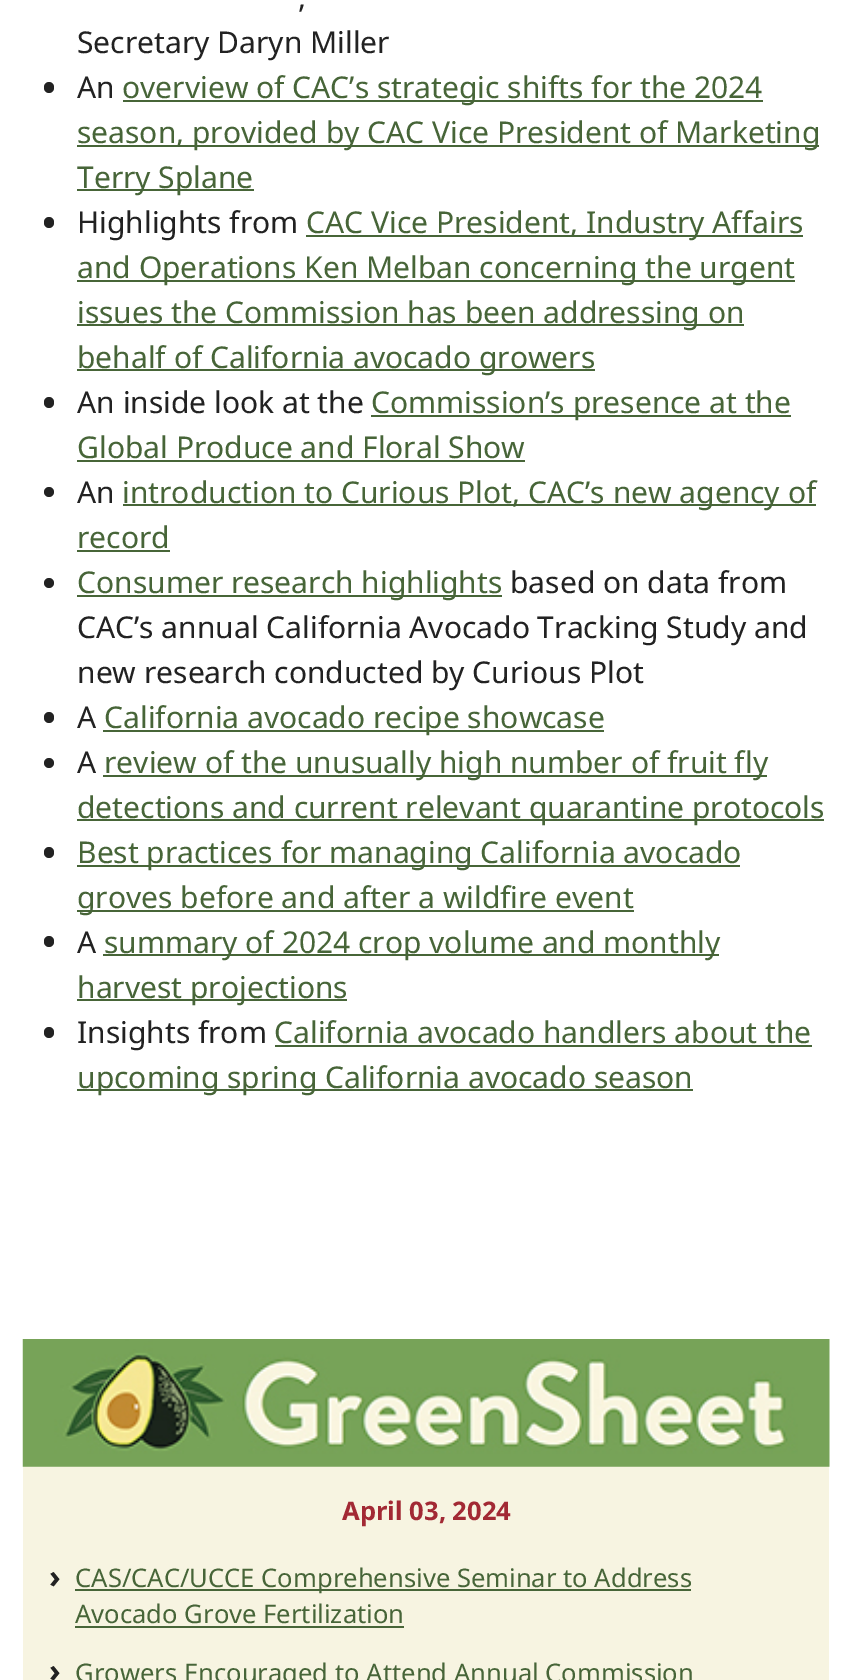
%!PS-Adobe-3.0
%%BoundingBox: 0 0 851 1680
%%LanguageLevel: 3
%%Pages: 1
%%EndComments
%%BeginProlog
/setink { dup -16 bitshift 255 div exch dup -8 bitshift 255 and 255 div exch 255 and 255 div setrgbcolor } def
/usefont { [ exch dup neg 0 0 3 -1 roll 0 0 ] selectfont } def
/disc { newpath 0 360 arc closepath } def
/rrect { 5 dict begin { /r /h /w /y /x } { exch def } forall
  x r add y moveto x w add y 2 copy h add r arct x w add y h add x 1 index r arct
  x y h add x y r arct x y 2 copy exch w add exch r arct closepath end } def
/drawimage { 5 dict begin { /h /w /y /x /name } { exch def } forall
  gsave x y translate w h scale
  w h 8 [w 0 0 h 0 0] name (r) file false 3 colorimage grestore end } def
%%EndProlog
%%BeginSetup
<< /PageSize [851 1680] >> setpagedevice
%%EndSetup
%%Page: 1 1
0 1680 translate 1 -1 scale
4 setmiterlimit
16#FFFFFF setink
0 0 851 1680 rectfill
/NotoSans-Regular 30 usefont
16#222222 setink
298 8 moveto (,) show
77 53 moveto (Secretary Daryn Miller) show
44 82 10 11 5 rrect fill
77 98 moveto (An) show
16#476538 setink
123 100 640 2 rectfill
122 98 moveto (overview of CAC’s strategic shifts for the 2024) show
77 145 742 2 rectfill
77 143 moveto (season, provided by CAC Vice President of Marketing) show
77 189 177 2 rectfill
77 188 moveto (Terry Splane) show
16#222222 setink
44 217 10 11 5 rrect fill
77 233 moveto (Highlights from) show
16#476538 setink
306 235 497 2 rectfill
306 233 moveto (CAC Vice President, Industry Affairs) show
77 280 718 2 rectfill
77 278 moveto (and Operations Ken Melban concerning the urgent) show
77 324 667 2 rectfill
77 323 moveto (issues the Commission has been addressing on) show
77 369 518 2 rectfill
77 368 moveto (behalf of California avocado growers) show
16#222222 setink
44 397 10 11 5 rrect fill
77 413 moveto (An inside look at the) show
16#476538 setink
371 415 420 2 rectfill
371 413 moveto (Commission’s presence at the) show
77 458 moveto (Global Produce and Floral Show) show
77 460 448 2 rectfill
16#222222 setink
49 492 5 disc fill
77 503 moveto (An) show
16#476538 setink
123 504 693 2 rectfill
122 503 moveto (introduction to Curious Plot, CAC’s new agency of) show
77 548 moveto (record) show
77 550 93 2 rectfill
16#222222 setink
49 583 5 disc fill
16#476538 setink
77 595 425 2 rectfill
77 593 moveto (Consumer research highlights) show
16#222222 setink
[
    [(based on data from) 510 593]
    [(CAC’s annual California Avocado Tracking Study and) 77 638]
    [(new research conducted by Curious Plot) 77 683]
] { aload pop moveto show } forall
44 712 10 11 5 rrect fill
77 728 moveto (A) show
16#476538 setink
103 730 501 2 rectfill
104 728 moveto (California avocado recipe showcase) show
16#222222 setink
49 763 5 disc fill
77 773 moveto (A) show
16#476538 setink
103 775 664 2 rectfill
104 773 moveto (review of the unusually high number of fruit fly) show
77 819 747 2 rectfill
77 818 moveto (detections and current relevant quarantine protocols) show
16#222222 setink
44 847 10 11 5 rrect fill
16#476538 setink
77 865 663 2 rectfill
77 863 moveto (Best practices for managing California avocado) show
77 910 557 2 rectfill
77 908 moveto (groves before and after a wildfire event) show
16#222222 setink
44 936 10 11 5 rrect fill
77 953 moveto (A) show
16#476538 setink
103 954 616 2 rectfill
104 953 moveto (summary of 2024 crop volume and monthly) show
77 999 270 2 rectfill
77 998 moveto (harvest projections) show
16#222222 setink
44 1027 10 11 5 rrect fill
77 1043 moveto (Insights from) show
16#476538 setink
274 1043 moveto (California avocado handlers about the) show
275 1045 537 2 rectfill
77 1089 616 2 rectfill
77 1088 moveto (upcoming spring California avocado season) show
16#F7F4E1 setink
23 1466 806 214 rectfill
(img1.raw) 22 1339 808 128 drawimage
/NotoSans-Bold 25.6 usefont
16#A22934 setink
342 1520 moveto (April 03, 2024) show
/NotoSans-Bold 32 usefont
16#222222 setink
49 1588 moveto (›) show
16#476538 setink
75 1589 616 2 rectfill
/NotoSans-Regular 25.6 usefont
75 1587 moveto (CAS/CAC/UCCE Comprehensive Seminar to Address) show
75 1623 moveto (Avocado Grove Fertilization) show
75 1626 329 2 rectfill
/NotoSans-Bold 32 usefont
16#222222 setink
49 1682 moveto (›) show
/NotoSans-Regular 25.6 usefont
16#476538 setink
75 1682 moveto (Growers Encouraged to Attend Annual Commission) show
showpage
%%EOF
